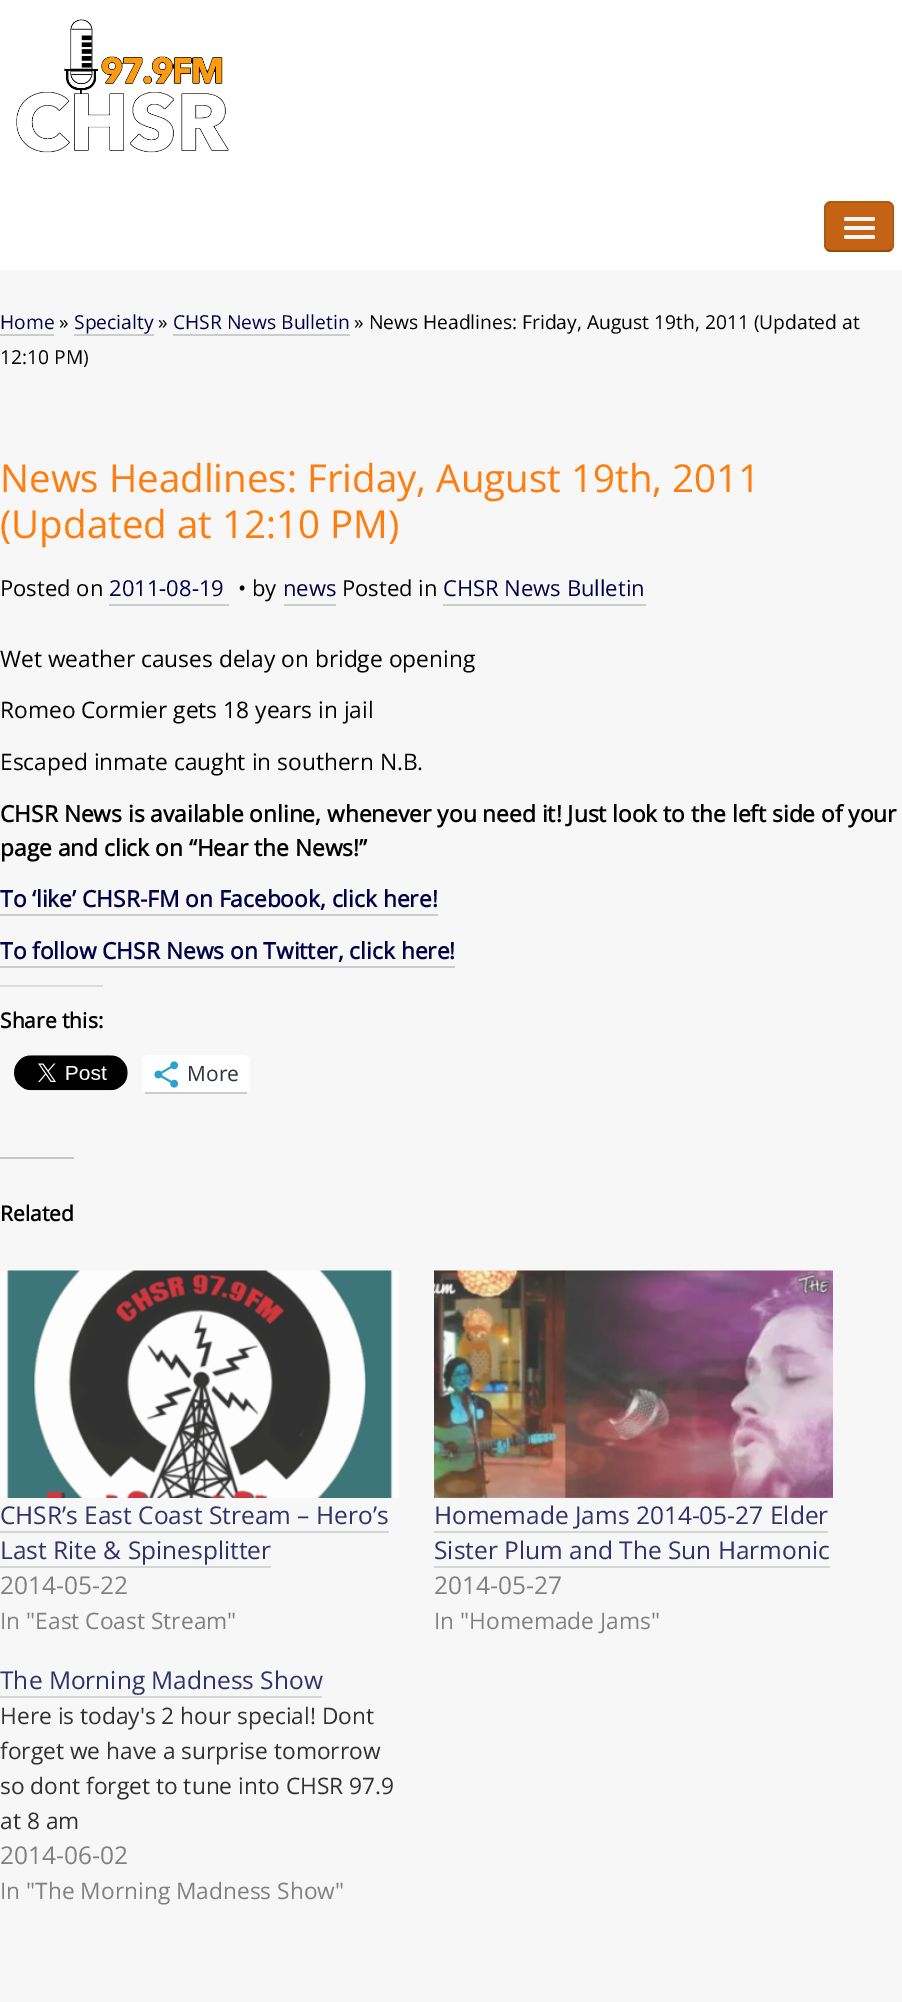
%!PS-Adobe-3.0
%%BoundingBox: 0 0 902 2002
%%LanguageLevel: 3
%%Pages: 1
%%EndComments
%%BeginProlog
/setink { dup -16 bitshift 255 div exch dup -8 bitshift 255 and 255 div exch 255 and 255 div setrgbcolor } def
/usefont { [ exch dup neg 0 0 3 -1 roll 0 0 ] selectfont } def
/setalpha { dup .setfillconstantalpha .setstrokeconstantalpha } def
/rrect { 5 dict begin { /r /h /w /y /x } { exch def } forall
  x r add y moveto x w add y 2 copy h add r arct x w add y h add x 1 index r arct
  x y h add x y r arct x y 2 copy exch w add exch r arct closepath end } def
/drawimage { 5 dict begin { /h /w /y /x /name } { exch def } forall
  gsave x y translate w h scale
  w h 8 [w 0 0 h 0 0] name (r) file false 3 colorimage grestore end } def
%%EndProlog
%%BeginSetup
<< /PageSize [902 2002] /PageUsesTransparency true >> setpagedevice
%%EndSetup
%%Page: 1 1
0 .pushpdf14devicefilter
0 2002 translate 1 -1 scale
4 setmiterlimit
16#F7F7F7 setink
0 0 902 2002 rectfill
16#FFFFFF setink
0 0 902 270 rectfill
(img1.raw) 16 19 213 134 drawimage
16#C46313 setink
824 201 70 51 7 rrect fill
0.25 setalpha
16#000000 setink
1.8 setlinewidth
891.5 249.5 moveto 890.5 250.5 889 251 887 251 curveto 831 251 lineto 829.5 251 828 250.5 827 249.5 curveto stroke
0.1 setalpha
827 249.5 moveto 826 248 825 246.5 825 245 curveto 825 208 lineto 825 206.5 826 205 827 204 curveto 828 203 829.5 202 831 202 curveto 887 202 lineto 889 202 890.5 203 891.5 204 curveto 892.5 205 893.5 206.5 893.5 208 curveto 893.5 245 lineto 893.5 246.5 892.5 248 891.5 249.5 curveto stroke
1 setalpha
16#F5F5F5 setink
844 217 31 4 2 rrect fill
844 226 31 4 2 rrect fill
844 235 31 4 2 rrect fill
/OpenSans-Regular 19.25 usefont
16#010147 setink
0 329 moveto (Home) show
16#CCCCCC setink
0 334 54 2 rectfill
16#000000 setink
59 329 moveto (») show
16#010147 setink
74 329 moveto (Specialty) show
16#CCCCCC setink
74 334 80 2 rectfill
16#000000 setink
158 329 moveto (») show
16#010147 setink
173 329 moveto (CHSR News Bulletin) show
16#CCCCCC setink
173 334 177 2 rectfill
16#000000 setink
354 329 moveto (» News Headlines: Friday, August 19th, 2011 \(Updated at) show
0 364 moveto (12:10 PM\)) show
/OpenSans-Regular 38.5 usefont
16#FF7D0F setink
0 492 moveto (News Headlines: Friday, August 19th, 2011) show
0 538 moveto (\(Updated at 12:10 PM\)) show
/OpenSans-Regular 22 usefont
16#000000 setink
0 596 moveto (Posted on) show
16#010147 setink
109 596 moveto (2011-08-19) show
16#CCCCCC setink
109 604 120 2 rectfill
16#000000 setink
238 596 moveto (• by) show
16#010147 setink
283 596 moveto (news) show
16#CCCCCC setink
284 604 52 2 rectfill
16#000000 setink
342 596 moveto (Posted in) show
16#010147 setink
443 596 moveto (CHSR News Bulletin) show
16#CCCCCC setink
443 604 203 2 rectfill
/OpenSans-Regular 22.75 usefont
16#000000 setink
[
    [(Wet weather causes delay on bridge opening) 0 667]
    [(Romeo Cormier gets 18 years in jail) 0 718]
    [(Escaped inmate caught in southern N.B.) 0 770]
] { aload pop moveto show } forall
/OpenSans-Bold 22.75 usefont
0 822 moveto (CHSR News is available online, whenever you need it! Just look to the left side of your) show
0 856 moveto (page and click on “Hear the News!”) show
16#010147 setink
0 907 moveto (To ‘like’ CHSR-FM on Facebook, click here!) show
16#CCCCCC setink
0 914 438 2 rectfill
16#010147 setink
0 959 moveto (To follow CHSR News on Twitter, click here!) show
16#CCCCCC setink
0 966 455 2 rectfill
16#DCDCDE setink
0 985 103 2 rectfill
/OpenSans-Bold 21 usefont
16#000000 setink
0 1028 moveto (Share this:) show
(img2.raw) 14 1055 114 36 drawimage
16#FFFFFF setink
142 1055 108 39 7 rrect fill
16#CCCCCC setink
145 1092 102 2 rectfill
(img3.raw) 154 1061 25 27 drawimage
/OpenSans-Regular 21 usefont
16#2C3338 setink
187 1081 moveto (More) show
16#C6C6C6 setink
0 1157 74 2 rectfill
/OpenSans-Bold 21 usefont
16#000000 setink
0 1221 moveto (Related) show
(img4.raw) 0 1270 399 228 drawimage
/OpenSans-Regular 24.5 usefont
16#32326A setink
0 1524 moveto (CHSR’s East Coast Stream – Hero’s) show
16#D5D5D5 setink
0 1531 389 2 rectfill
16#32326A setink
0 1559 moveto (Last Rite & Spinesplitter) show
16#D5D5D5 setink
0 1566 271 2 rectfill
16#808080 setink
0 1594 moveto (2014-05-22) show
/OpenSans-Regular 22.75 usefont
0 1629 moveto (In "East Coast Stream") show
(img5.raw) 434 1270 399 228 drawimage
/OpenSans-Regular 24.5 usefont
16#32326A setink
434 1524 moveto (Homemade Jams 2014-05-27 Elder) show
16#D5D5D5 setink
434 1531 394 2 rectfill
16#32326A setink
434 1559 moveto (Sister Plum and The Sun Harmonic) show
16#D5D5D5 setink
434 1566 396 2 rectfill
16#808080 setink
434 1594 moveto (2014-05-27) show
/OpenSans-Regular 22.75 usefont
434 1629 moveto (In "Homemade Jams") show
/OpenSans-Regular 24.5 usefont
16#32326A setink
0 1689 moveto (The Morning Madness Show) show
16#D5D5D5 setink
0 1696 322 2 rectfill
/OpenSans-Regular 22.75 usefont
16#313131 setink
[
    [(Here is today's 2 hour special! Dont) 0 1724]
    [(forget we have a surprise tomorrow) 0 1759]
    [(so dont forget to tune into CHSR 97.9) 0 1794]
    [(at 8 am) 0 1829]
] { aload pop moveto show } forall
/OpenSans-Regular 24.5 usefont
16#808080 setink
0 1864 moveto (2014-06-02) show
/OpenSans-Regular 22.75 usefont
0 1899 moveto (In "The Morning Madness Show") show
.poppdf14devicefilter showpage
%%EOF
